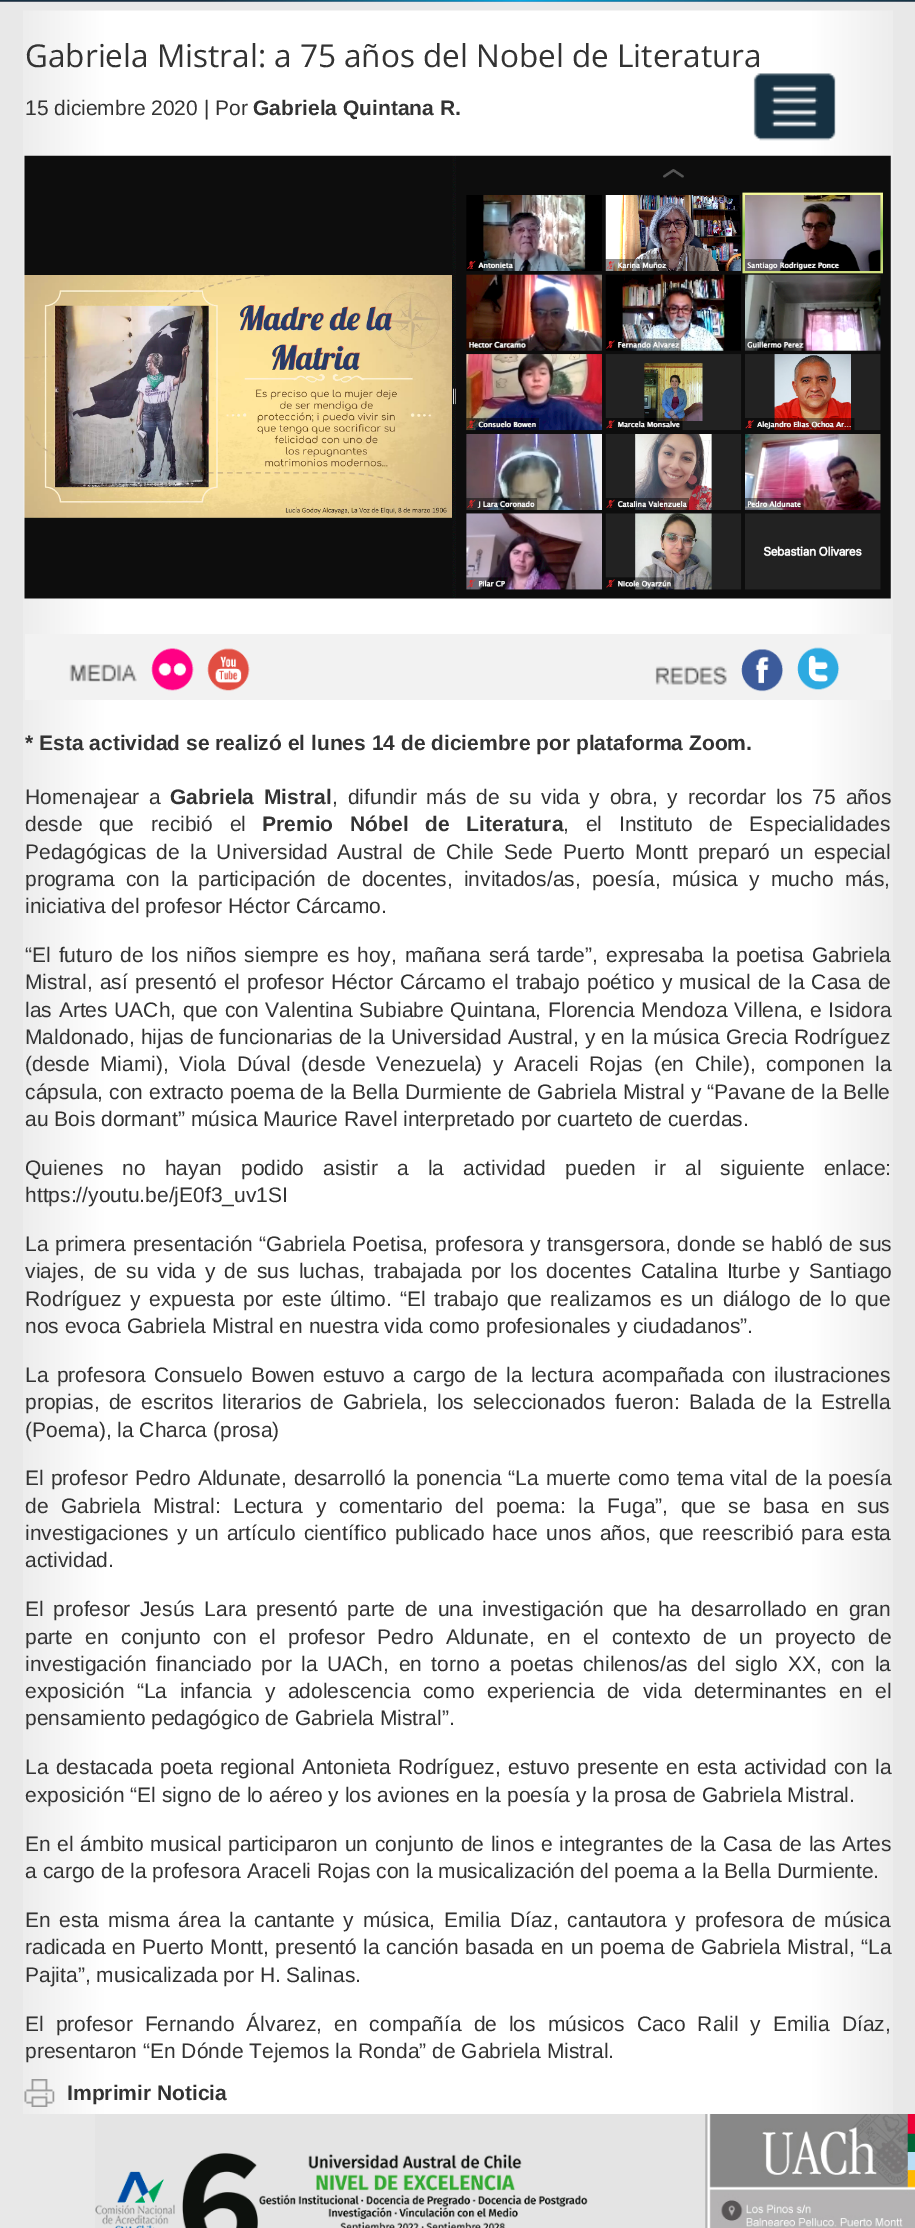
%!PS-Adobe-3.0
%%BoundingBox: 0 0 915 2228
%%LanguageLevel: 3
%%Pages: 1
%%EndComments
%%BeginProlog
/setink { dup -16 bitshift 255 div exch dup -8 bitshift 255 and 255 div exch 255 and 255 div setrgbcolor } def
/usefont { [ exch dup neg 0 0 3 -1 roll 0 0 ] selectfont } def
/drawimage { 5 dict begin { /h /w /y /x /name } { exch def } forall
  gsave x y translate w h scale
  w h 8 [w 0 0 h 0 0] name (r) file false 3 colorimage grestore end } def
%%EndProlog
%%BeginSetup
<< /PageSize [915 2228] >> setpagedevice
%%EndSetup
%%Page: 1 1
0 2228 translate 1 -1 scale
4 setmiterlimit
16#E8E8E8 setink
0 0 915 2228 rectfill
(img1.raw) 0 0 915 2 drawimage
(img2.raw) 23 10 870 18 drawimage
(img3.raw) 23 28 870 2086 drawimage
/OpenSans-Regular 31.5 usefont
16#333333 setink
25 67 moveto (Gabriela Mistral: a 75 años del Nobel de Literatura) show
/LiberationSans-Regular 21 usefont
25 115 moveto (15 diciembre 2020 | Por) show
/LiberationSans-Bold 21 usefont
253 115 moveto (Gabriela Quintana R.) show
(img4.raw) 24 155 867 444 drawimage
16#F2F2F2 setink
25 634 866 66 rectfill
(img5.raw) 69 664 68 18 drawimage
(img6.raw) 151 648 43 43 drawimage
(img7.raw) 207 648 43 43 drawimage
(img8.raw) 655 666 72 19 drawimage
(img9.raw) 741 649 42 43 drawimage
(img10.raw) 797 647 43 43 drawimage
16#333333 setink
25 750 moveto (* Esta actividad se realizó el lunes 14 de diciembre por plataforma Zoom.) show
/LiberationSans-Regular 21 usefont
25 804 moveto 4 0 32 (Homenajear a) widthshow
/LiberationSans-Bold 21 usefont
170 804 moveto 4 0 32 (Gabriela Mistral) widthshow
/LiberationSans-Regular 21 usefont
332 804 moveto 4 0 32 (, difundir más de su vida y obra, y recordar los 75 años) widthshow
25 831 moveto 11 0 32 (desde que recibió el) widthshow
/LiberationSans-Bold 21 usefont
262 831 moveto 11 0 32 (Premio Nóbel de Literatura) widthshow
/LiberationSans-Regular 21 usefont
563 831 moveto 11 0 32 (, el Instituto de Especialidades) widthshow
25 859 moveto 4.25 0 32 (Pedagógicas de la Universidad Austral de Chile Sede Puerto Montt preparó un especial) widthshow
25 886 moveto 5.25 0 32 (programa con la participación de docentes, invitados/as, poesía, música y mucho más,) widthshow
25 913 moveto (iniciativa del profesor Héctor Cárcamo.) show
25 962 moveto 2.1 0 32 (“El futuro de los niños siempre es hoy, mañana será tarde”, expresaba la poetisa Gabriela) widthshow
25 989 moveto 1.25 0 32 (Mistral, así presentó el profesor Héctor Cárcamo el trabajo poético y musical de la Casa de) widthshow
25 1017 moveto 0.9 0 32 (las Artes UACh, que con Valentina Subiabre Quintana, Florencia Mendoza Villena, e Isidora) widthshow
25 1044 moveto 0.25 0 32 (Maldonado, hijas de funcionarias de la Universidad Austral, y en la música Grecia Rodríguez) widthshow
25 1071 moveto 4.9 0 32 (\(desde Miami\), Viola Dúval \(desde Venezuela\) y Araceli Rojas \(en Chile\), componen la) widthshow
25 1099 moveto 0.25 0 32 (cápsula, con extracto poema de la Bella Durmiente de Gabriela Mistral y “Pavane de la Belle) widthshow
25 1126 moveto (au Bois dormant” música Maurice Ravel interpretado por cuarteto de cuerdas.) show
25 1175 moveto 13.25 0 32 (Quienes no hayan podido asistir a la actividad pueden ir al siguiente enlace:) widthshow
25 1202 moveto (https://youtu.be/jE0f3_uv1SI) show
25 1251 moveto 0.75 0 32 (La primera presentación “Gabriela Poetisa, profesora y transgersora, donde se habló de sus) widthshow
25 1278 moveto 3.25 0 32 (viajes, de su vida y de sus luchas, trabajada por los docentes Catalina Iturbe y Santiago) widthshow
25 1306 moveto 2.6 0 32 (Rodríguez y expuesta por este último. “El trabajo que realizamos es un diálogo de lo que) widthshow
25 1333 moveto (nos evoca Gabriela Mistral en nuestra vida como profesionales y ciudadanos”.) show
25 1382 moveto 2.5 0 32 (La profesora Consuelo Bowen estuvo a cargo de la lectura acompañada con ilustraciones) widthshow
25 1409 moveto 3.1 0 32 (propias, de escritos literarios de Gabriela, los seleccionados fueron: Balada de la Estrella) widthshow
25 1437 moveto (\(Poema\), la Charca \(prosa\)) show
25 1485 moveto 1.2 0 32 (El profesor Pedro Aldunate, desarrolló la ponencia “La muerte como tema vital de la poesía) widthshow
25 1513 moveto 6.75 0 32 (de Gabriela Mistral: Lectura y comentario del poema: la Fuga”, que se basa en sus) widthshow
25 1540 moveto 2.25 0 32 (investigaciones y un artículo científico publicado hace unos años, que reescribió para esta) widthshow
25 1567 moveto (actividad.) show
25 1616 moveto 3.75 0 32 (El profesor Jesús Lara presentó parte de una investigación que ha desarrollado en gran) widthshow
25 1644 moveto 6.6 0 32 (parte en conjunto con el profesor Pedro Aldunate, en el contexto de un proyecto de) widthshow
25 1671 moveto 3.75 0 32 (investigación financiado por la UACh, en torno a poetas chilenos/as del siglo XX, con la) widthshow
25 1698 moveto 6.75 0 32 (exposición “La infancia y adolescencia como experiencia de vida determinantes en el) widthshow
25 1725 moveto (pensamiento pedagógico de Gabriela Mistral”.) show
25 1774 moveto 1.5 0 32 (La destacada poeta regional Antonieta Rodríguez, estuvo presente en esta actividad con la) widthshow
25 1802 moveto (exposición “El signo de lo aéreo y los aviones en la poesía y la prosa de Gabriela Mistral.) show
25 1851 moveto 0.9 0 32 (En el ámbito musical participaron un conjunto de linos e integrantes de la Casa de las Artes) widthshow
25 1878 moveto (a cargo de la profesora Araceli Rojas con la musicalización del poema a la Bella Durmiente.) show
25 1927 moveto 2.9 0 32 (En esta misma área la cantante y música, Emilia Díaz, cantautora y profesora de música) widthshow
25 1954 moveto 0.7 0 32 (radicada en Puerto Montt, presentó la canción basada en un poema de Gabriela Mistral, “La) widthshow
25 1982 moveto (Pajita”, musicalizada por H. Salinas.) show
25 2031 moveto 6.1 0 32 (El profesor Fernando Álvarez, en compañía de los músicos Caco Ralil y Emilia Díaz,) widthshow
25 2058 moveto (presentaron “En Dónde Tejemos la Ronda” de Gabriela Mistral.) show
(img11.raw) 24 2079 31 28 drawimage
/LiberationSans-Bold 21 usefont
67 2100 moveto (Imprimir Noticia) show
(img12.raw) 753 73 83 68 drawimage
(img13.raw) 95 2114 820 114 drawimage
showpage
%%EOF
